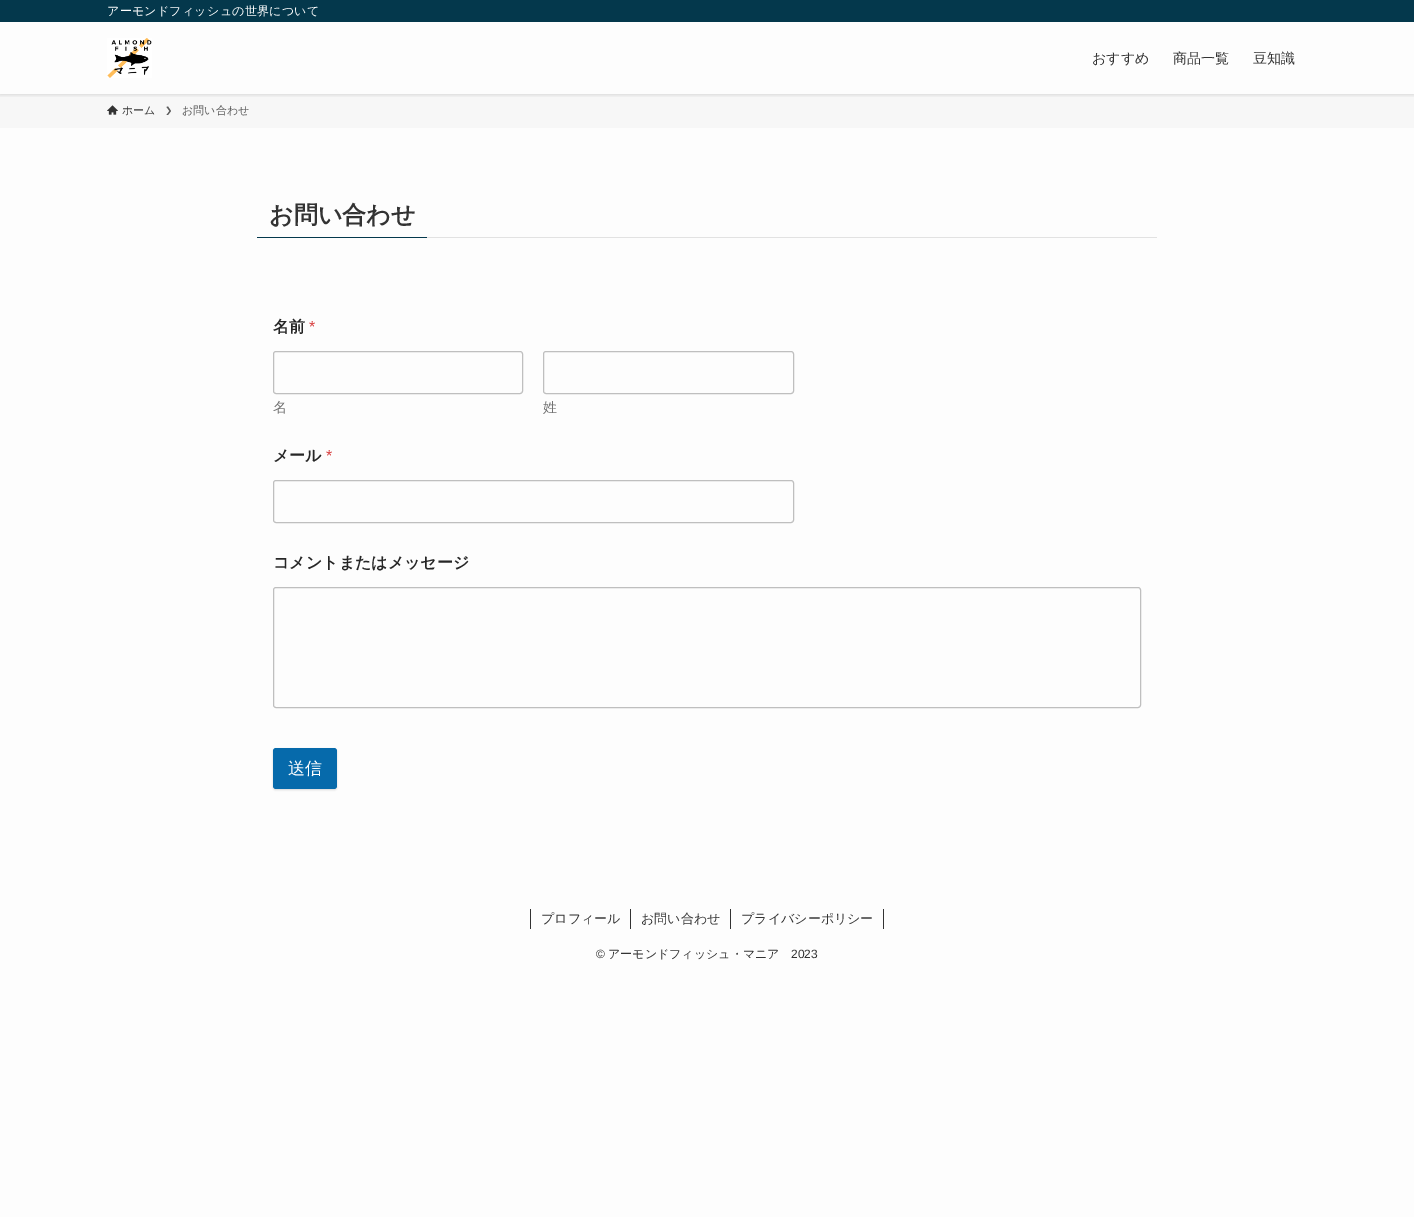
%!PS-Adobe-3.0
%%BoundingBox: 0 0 1414 1217
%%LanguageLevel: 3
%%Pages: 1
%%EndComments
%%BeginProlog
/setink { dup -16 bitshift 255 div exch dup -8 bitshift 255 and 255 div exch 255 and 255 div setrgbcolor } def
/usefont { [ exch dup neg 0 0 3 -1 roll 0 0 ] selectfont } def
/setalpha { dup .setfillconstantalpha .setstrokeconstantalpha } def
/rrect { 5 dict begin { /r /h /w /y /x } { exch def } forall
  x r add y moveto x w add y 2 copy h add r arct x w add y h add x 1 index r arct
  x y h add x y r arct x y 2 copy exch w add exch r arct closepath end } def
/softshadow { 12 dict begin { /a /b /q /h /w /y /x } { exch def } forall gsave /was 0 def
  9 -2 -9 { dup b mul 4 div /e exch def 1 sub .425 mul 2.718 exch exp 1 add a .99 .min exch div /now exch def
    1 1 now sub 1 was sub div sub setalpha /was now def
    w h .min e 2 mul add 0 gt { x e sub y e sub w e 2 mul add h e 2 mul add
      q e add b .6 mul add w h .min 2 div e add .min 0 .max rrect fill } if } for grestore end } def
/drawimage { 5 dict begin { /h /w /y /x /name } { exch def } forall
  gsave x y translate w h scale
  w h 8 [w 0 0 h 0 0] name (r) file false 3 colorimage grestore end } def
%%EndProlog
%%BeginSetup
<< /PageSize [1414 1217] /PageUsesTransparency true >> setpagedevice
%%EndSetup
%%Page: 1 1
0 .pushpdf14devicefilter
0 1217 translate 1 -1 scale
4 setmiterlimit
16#FDFDFD setink
0 0 1414 1217 rectfill
16#F7F7F7 setink
0 94 1414 34 rectfill
gsave
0 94 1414 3 rectclip
16#000000 setink
0 1 1414 94 0 2 0.12 softshadow
grestore
16#04384C setink
0 0 1414 22 rectfill
/WenQuanYiZenHei-Medium 12 usefont
16#FFFFFF setink
107 15 moveto 0.25 0 (アーモンドフィッシュの世界について) ashow
(img1.raw) 107 38 45 40 drawimage
/WenQuanYiZenHei-Medium 14 usefont
16#333333 setink
[
    [(おすすめ) 1092 63]
    [(商品一覧) 1173 63]
    [(豆知識) 1253 63]
] { aload pop moveto show } forall
(img2.raw) 107 105 11 10 drawimage
/WenQuanYiZenHei-Medium 11 usefont
122 114 moveto (ホーム) show
16#5A5A5A setink
168 106.5 moveto 166.5 107 lineto 169.5 111 lineto 166.5 115 lineto 168 115 lineto 171 111 lineto closepath fill
182 114 moveto (お問い合わせ) show
16#E2E2E2 setink
427 237 730 1 rectfill
16#04384C setink
257 237 170 1 rectfill
/WenQuanYiZenHei-Bold 24 usefont
16#333333 setink
269 223 moveto (お問い合わせ) show
/WenQuanYiZenHei-Bold 16 usefont
16#262626 setink
273 332 moveto (名前) show
/LiberationSans-Regular 16 usefont
16#D63637 setink
309 332 moveto (*) show
16#BFBFBF setink
273.5 351.5 249 42 2.5 rrect stroke
/WenQuanYiZenHei-Medium 14 usefont
16#727272 setink
273 412 moveto (名) show
16#BFBFBF setink
543.5 351.5 250 42 2.5 rrect stroke
16#727272 setink
543 412 moveto (姓) show
/WenQuanYiZenHei-Bold 16 usefont
16#262626 setink
273 461 moveto (メール) show
/LiberationSans-Regular 16 usefont
16#D63637 setink
326 461 moveto (*) show
16#BFBFBF setink
273.5 480.5 520 42 2.5 rrect stroke
/WenQuanYiZenHei-Bold 16 usefont
16#262626 setink
273 568 moveto (コメントまたはメッセージ) show
16#BFBFBF setink
273.5 587.5 867 120 2.5 rrect stroke
16#000000 setink
273 749 64 41 3 1 0.15 softshadow
16#066AAB setink
273 748 64 41 3 rrect fill
/WenQuanYiZenHei-Medium 17 usefont
16#FFFFFF setink
288 774 moveto (送信) show
16#333333 setink
630 909 1 20 rectfill
530 909 1 20 rectfill
/WenQuanYiZenHei-Medium 13 usefont
541 923 moveto (プロフィール) show
730 909 1 20 rectfill
641 923 moveto (お問い合わせ) show
883 909 1 20 rectfill
741 923 moveto (プライバシーポリシー) show
/LiberationSans-Regular 12 usefont
596 958 moveto (©) show
/WenQuanYiZenHei-Medium 12 usefont
608 958 moveto (アーモンドフィッシュ・マニア) show
/LiberationSans-Regular 12 usefont
791 958 moveto (2023) show
.poppdf14devicefilter showpage
%%EOF
